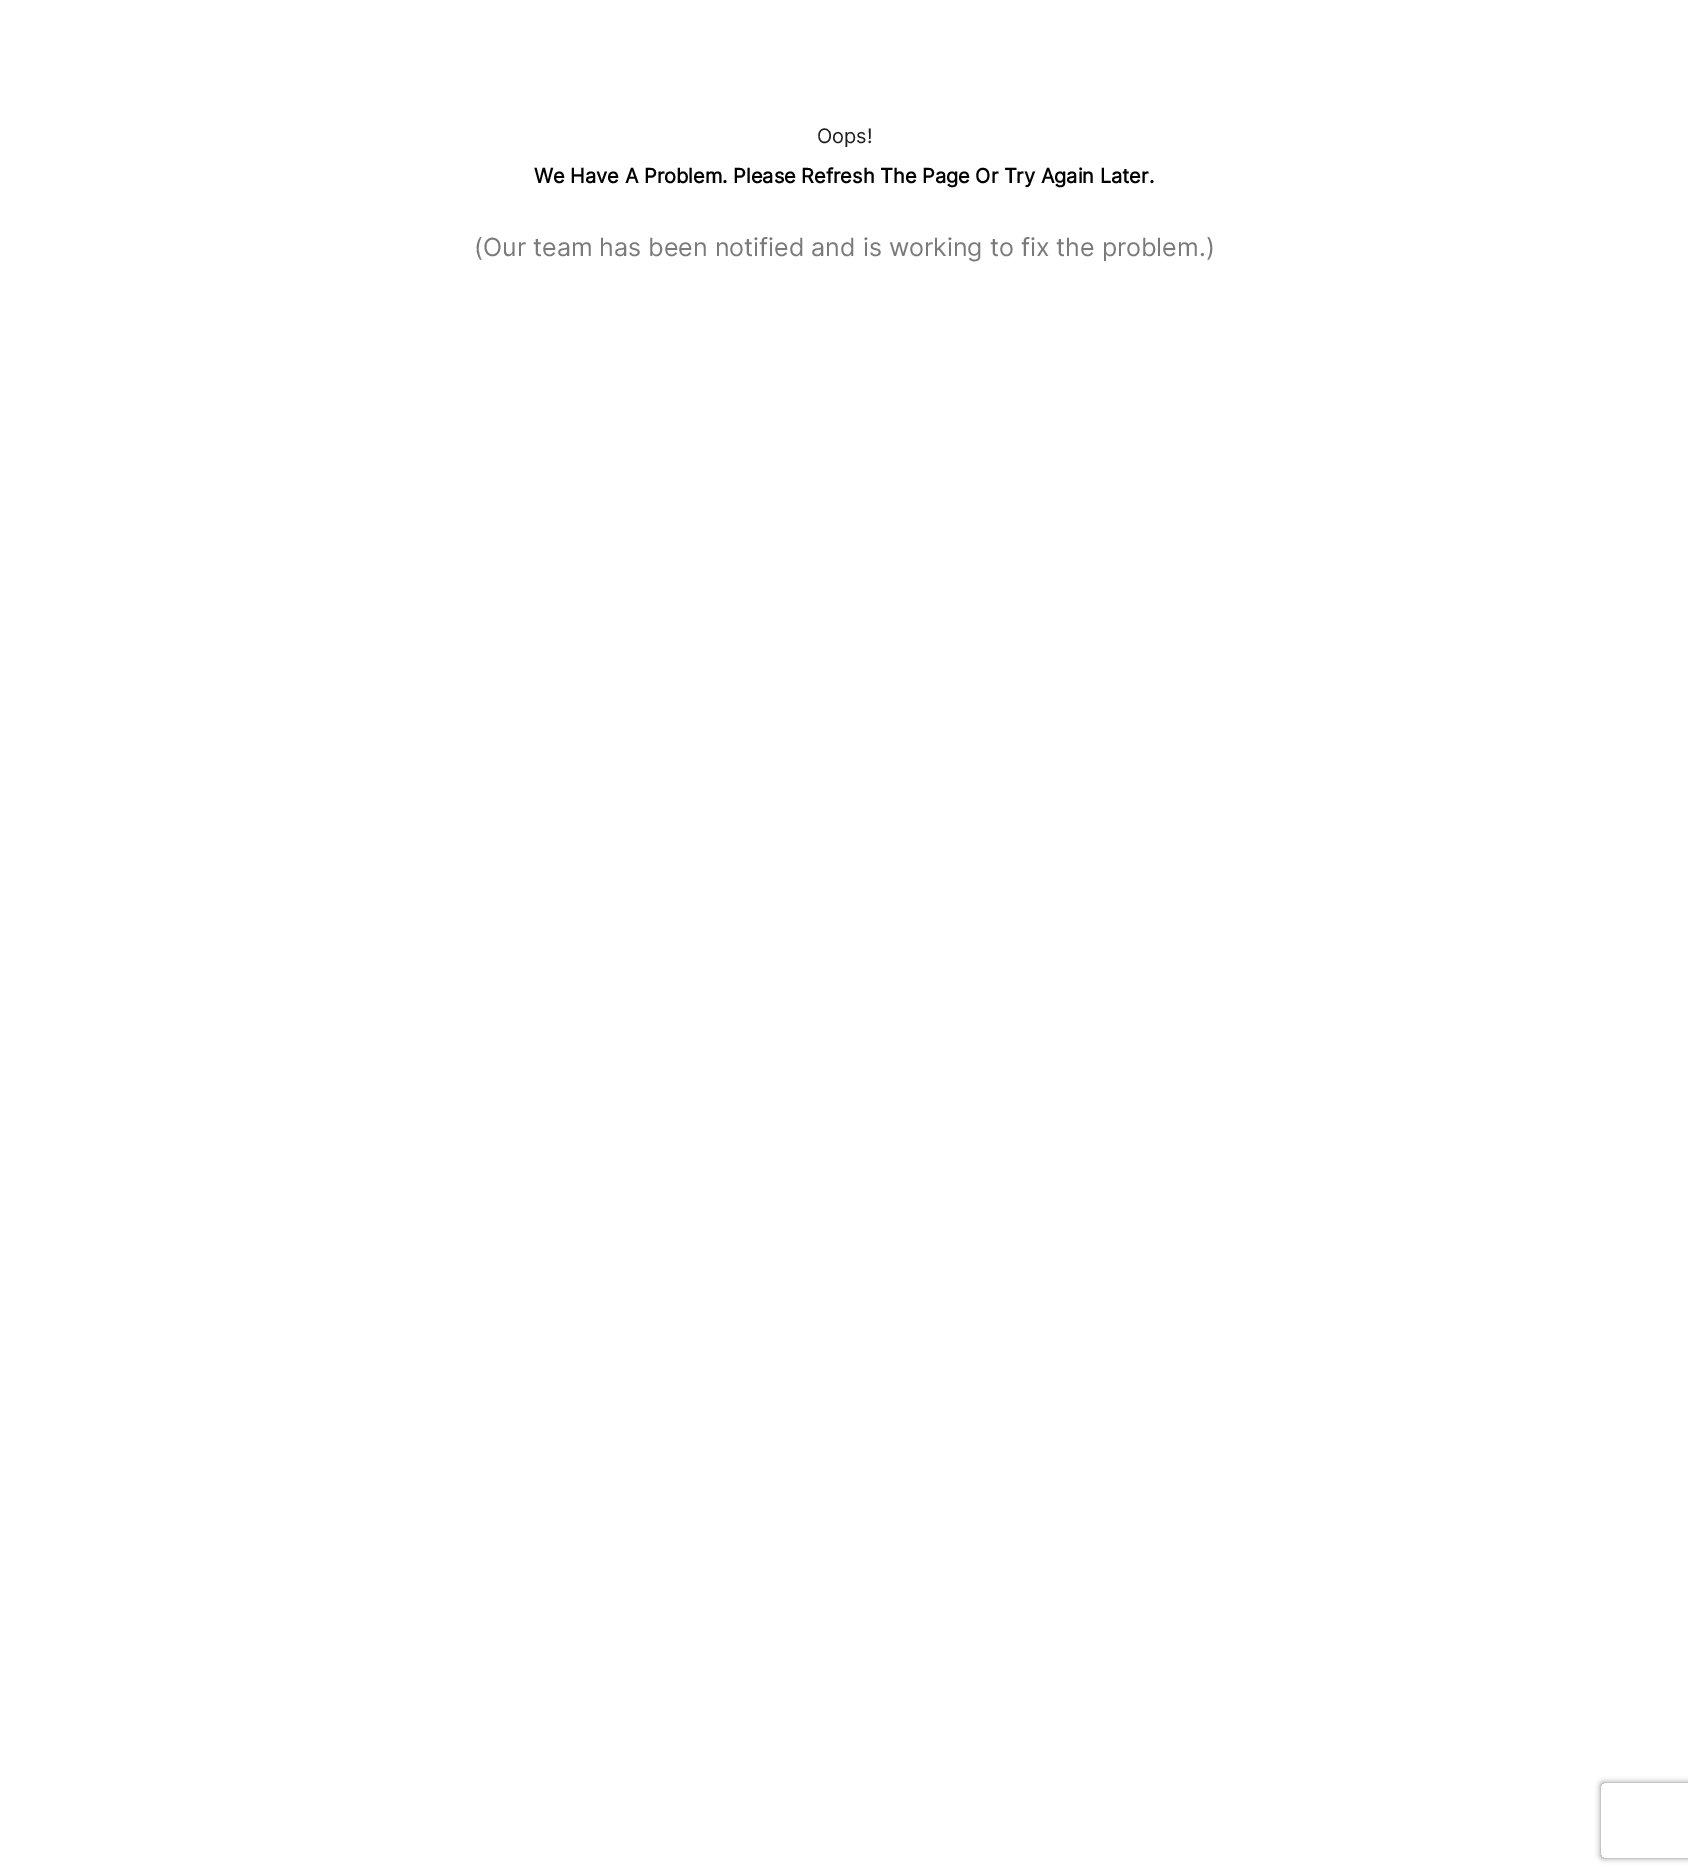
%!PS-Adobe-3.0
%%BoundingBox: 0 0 1688 1874
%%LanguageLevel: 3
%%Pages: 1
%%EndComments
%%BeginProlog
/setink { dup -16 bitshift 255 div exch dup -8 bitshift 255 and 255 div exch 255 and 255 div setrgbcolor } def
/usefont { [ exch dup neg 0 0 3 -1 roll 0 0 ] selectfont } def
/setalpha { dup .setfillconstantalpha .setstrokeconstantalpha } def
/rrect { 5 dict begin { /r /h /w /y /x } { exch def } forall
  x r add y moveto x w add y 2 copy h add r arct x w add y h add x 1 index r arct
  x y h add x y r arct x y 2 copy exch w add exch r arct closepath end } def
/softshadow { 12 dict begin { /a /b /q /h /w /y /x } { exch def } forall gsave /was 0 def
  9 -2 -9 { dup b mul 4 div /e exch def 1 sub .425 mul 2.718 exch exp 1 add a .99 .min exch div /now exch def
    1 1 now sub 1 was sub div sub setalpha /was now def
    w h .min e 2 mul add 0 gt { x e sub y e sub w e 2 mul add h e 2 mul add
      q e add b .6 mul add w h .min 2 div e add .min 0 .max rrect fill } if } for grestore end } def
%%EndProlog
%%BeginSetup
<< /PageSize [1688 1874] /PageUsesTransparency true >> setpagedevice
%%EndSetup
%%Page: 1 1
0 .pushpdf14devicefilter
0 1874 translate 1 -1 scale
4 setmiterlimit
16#FFFFFF setink
0 0 1688 1874 rectfill
/Inter-Regular 20 usefont
16#212121 setink
817 143 moveto (Oops!) show
/Inter-Bold 20 usefont
16#000000 setink
534 183 moveto (We Have A Problem. Please Refresh The Page Or Try Again Later.) show
/Inter-Regular 25 usefont
16#7A7A7A setink
474 256 moveto (\(Our team has been notified and is working to fix the problem.\)) show
gsave
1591 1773 moveto 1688 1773 lineto 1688 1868 lineto 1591 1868 lineto closepath 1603.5 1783 moveto 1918.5 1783 lineto 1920 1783 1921 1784 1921 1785.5 curveto 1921 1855.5 lineto 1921 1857 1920 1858 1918.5 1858 curveto 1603.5 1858 lineto 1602 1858 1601 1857 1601 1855.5 curveto 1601 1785.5 lineto 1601 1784 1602 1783 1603.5 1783 curveto closepath eoclip newpath
16#808080 setink
1601 1783 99 75 2.5 3 1 softshadow
grestore
.poppdf14devicefilter showpage
%%EOF
